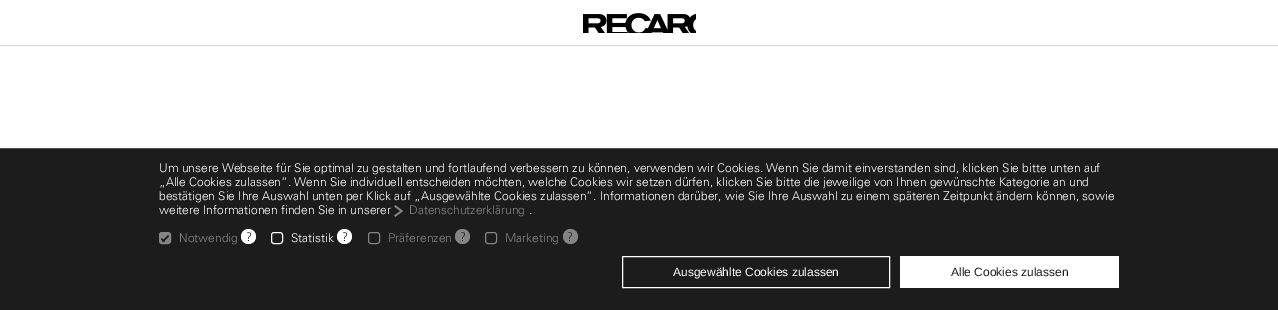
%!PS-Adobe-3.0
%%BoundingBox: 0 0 1278 310
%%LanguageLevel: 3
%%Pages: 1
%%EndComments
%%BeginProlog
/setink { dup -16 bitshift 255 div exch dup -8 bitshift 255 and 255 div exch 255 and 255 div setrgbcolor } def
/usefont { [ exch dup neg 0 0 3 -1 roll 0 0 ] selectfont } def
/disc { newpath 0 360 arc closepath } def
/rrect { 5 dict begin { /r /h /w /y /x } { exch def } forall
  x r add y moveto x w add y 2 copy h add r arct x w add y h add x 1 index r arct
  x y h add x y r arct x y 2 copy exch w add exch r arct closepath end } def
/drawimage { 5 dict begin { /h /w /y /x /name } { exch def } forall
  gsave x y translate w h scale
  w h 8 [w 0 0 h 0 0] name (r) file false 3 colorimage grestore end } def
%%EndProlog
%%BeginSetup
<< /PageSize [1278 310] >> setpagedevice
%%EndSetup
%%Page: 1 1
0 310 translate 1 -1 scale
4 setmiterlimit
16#FFFFFF setink
0 0 1278 310 rectfill
16#DADADA setink
0 45 1278 1 rectfill
(img1.raw) 583 13 113 20 drawimage
16#1C1C1C setink
0 149 1278 161 rectfill
16#525252 setink
0 148 1278 1 rectfill
/Univers-Light 12 usefont
16#FFFFFF setink
[
    [(Um unsere Webseite für Sie optimal zu gestalten und fortlaufend verbessern zu können, verwenden wir Cookies. Wenn Sie damit einverstanden sind, klicken Sie bitte unten auf) 159 172]
    [(„Alle Cookies zulassen“. Wenn Sie individuell entscheiden möchten, welche Cookies wir setzen dürfen, klicken Sie bitte die jeweilige von Ihnen gewünschte Kategorie an und) 159 186]
    [(bestätigen Sie Ihre Auswahl unten per Klick auf „Ausgewählte Cookies zulassen“. Informationen darüber, wie Sie Ihre Auswahl zu einem späteren Zeitpunkt ändern können, sowie) 159 200]
    [(weitere Informationen finden Sie in unserer) 159 214]
] { aload pop moveto show } forall
(img2.raw) 394 205 10 12 drawimage
16#848484 setink
409 214 moveto (Datenschutzerklärung) show
16#FFFFFF setink
529 214 moveto (.) show
16#848484 setink
159.5 232.5 11 11 2.5 rrect gsave fill grestore
stroke
179 242 moveto (Notwendig) show
16#1C1C1C setink
168 235 moveto 169 236.5 lineto 163.5 242 lineto 162 241 lineto closepath fill
162 238 moveto 165 241 lineto 163.5 242 lineto 161 239.5 lineto closepath fill
16#FFFFFF setink
248.5 236.5 7.5 disc fill
16#1C1C1C setink
246 241 moveto (?) show
16#FFFFFF setink
271.5 232.5 11 11 2.5 rrect stroke
291 242 moveto (Statistik) show
344.5 236.5 7.5 disc fill
16#1C1C1C setink
342 241 moveto (?) show
16#848484 setink
368.5 232.5 11 11 2.5 rrect stroke
388 242 moveto (Präferenzen) show
462.5 236.5 7.5 disc fill
16#1C1C1C setink
460 241 moveto (?) show
16#848484 setink
485.5 232.5 11 11 2.5 rrect stroke
505 242 moveto (Marketing) show
570.5 236.5 7.5 disc fill
16#1C1C1C setink
567 241 moveto (?) show
16#FFFFFF setink
622.5 256.5 267 31 rectstroke
/LiberationSans-Regular 12 usefont
673 276 moveto (Ausgewählte Cookies zulassen) show
900 256 219 32 rectfill
16#1C1C1C setink
951 276 moveto (Alle Cookies zulassen) show
showpage
%%EOF
